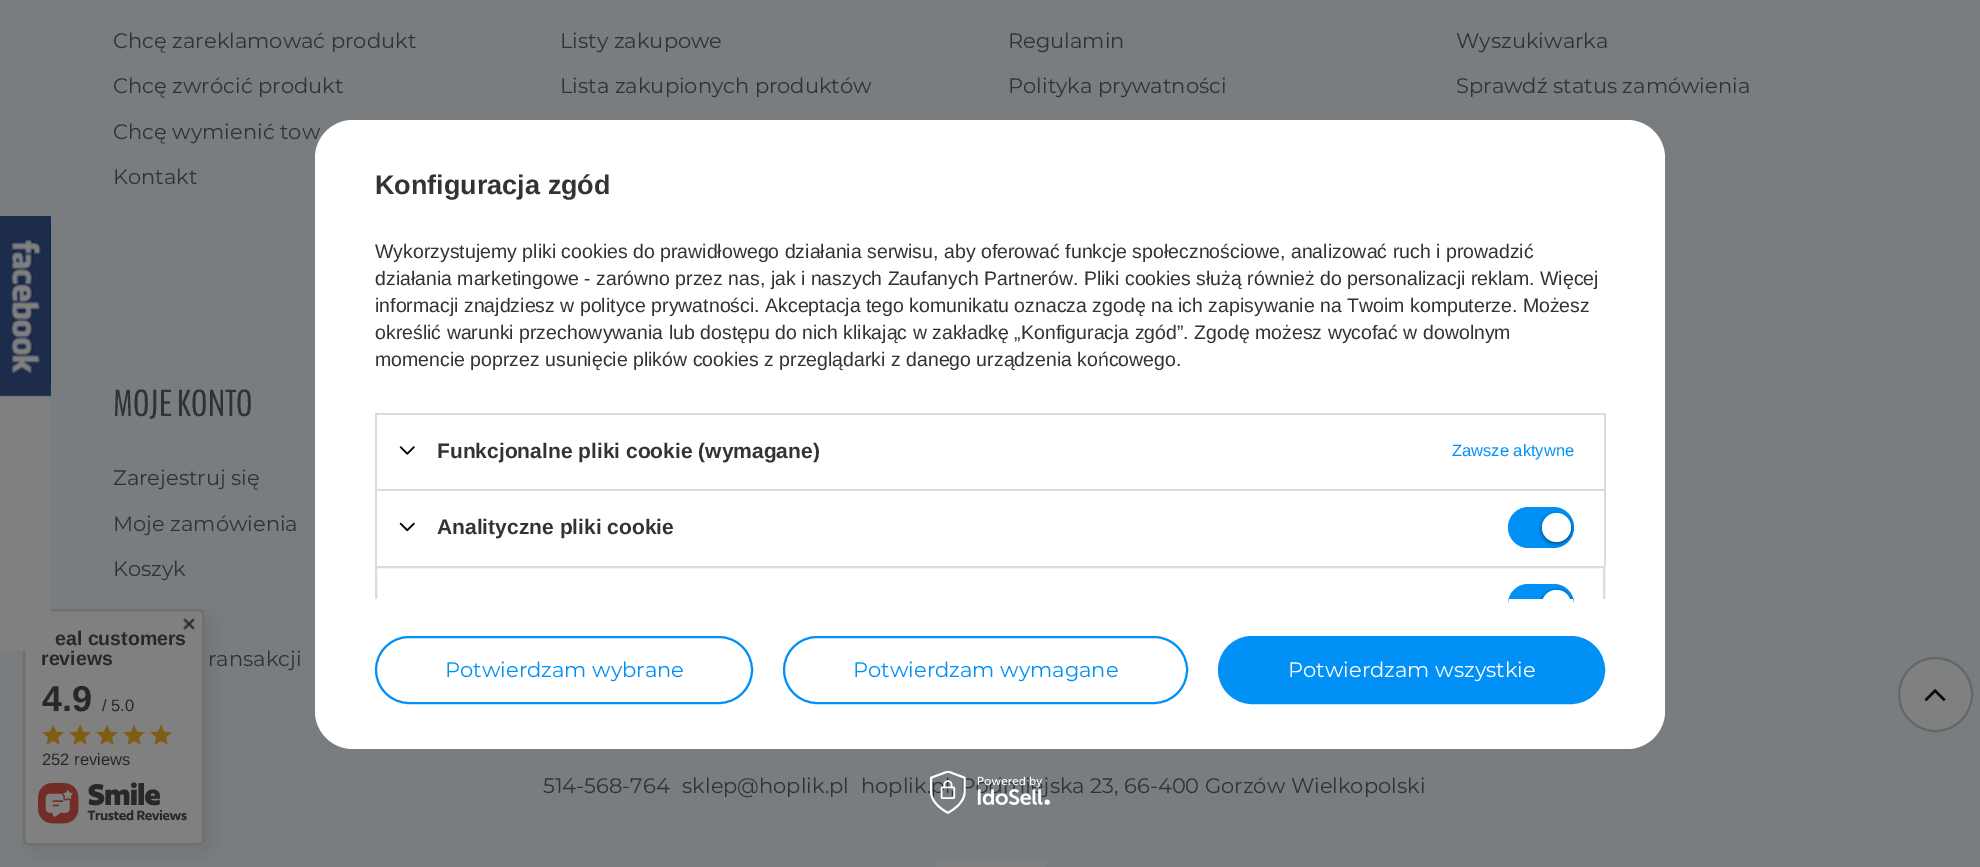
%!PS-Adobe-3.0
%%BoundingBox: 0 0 1980 867
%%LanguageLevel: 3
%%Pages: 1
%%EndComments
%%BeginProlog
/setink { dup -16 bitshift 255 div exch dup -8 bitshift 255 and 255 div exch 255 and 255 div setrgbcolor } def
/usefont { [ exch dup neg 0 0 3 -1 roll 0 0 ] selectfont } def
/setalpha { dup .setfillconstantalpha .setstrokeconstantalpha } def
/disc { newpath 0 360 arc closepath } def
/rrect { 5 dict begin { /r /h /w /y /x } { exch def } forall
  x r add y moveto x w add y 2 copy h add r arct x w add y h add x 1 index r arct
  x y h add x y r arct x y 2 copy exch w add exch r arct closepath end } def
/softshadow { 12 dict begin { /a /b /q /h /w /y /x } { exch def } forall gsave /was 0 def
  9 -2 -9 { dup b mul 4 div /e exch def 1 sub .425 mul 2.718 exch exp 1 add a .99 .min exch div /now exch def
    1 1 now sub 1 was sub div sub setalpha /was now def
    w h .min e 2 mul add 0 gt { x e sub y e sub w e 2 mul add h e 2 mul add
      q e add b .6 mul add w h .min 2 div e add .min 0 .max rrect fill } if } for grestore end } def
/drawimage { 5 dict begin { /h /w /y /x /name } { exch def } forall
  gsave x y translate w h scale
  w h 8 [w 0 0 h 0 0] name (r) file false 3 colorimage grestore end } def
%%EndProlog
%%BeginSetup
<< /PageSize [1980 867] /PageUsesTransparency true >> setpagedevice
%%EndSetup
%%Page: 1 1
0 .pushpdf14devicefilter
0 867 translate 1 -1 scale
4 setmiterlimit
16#797D80 setink
0 0 1980 867 rectfill
/Montserrat-Regular 21 usefont
16#2D3337 setink
[
    [(Chcę zareklamować produkt) 113 48]
    [(Chcę zwrócić produkt) 113 93]
    [(Chcę wymienić tow) 113 139]
    [(Kontakt) 113 184]
    [(Listy zakupowe) 560 48]
    [(Lista zakupionych produktów) 560 93]
    [(Regulamin) 1008 48]
    [(Polityka prywatności) 1008 93]
    [(Wyszukiwarka) 1456 48]
    [(Sprawdź status zamówienia) 1456 93]
] { aload pop moveto show } forall
/BenchNine-Regular 37.5 usefont
113 416 moveto (MOJE KONTO) show
/Montserrat-Regular 21 usefont
[
    [(Zarejestruj się) 113 485]
    [(Moje zamówienia) 113 531]
    [(Koszyk) 113 576]
    [(ransakcji) 208 666]
    [(514-568-764) 543 793]
    [(sklep@hoplik.pl) 682 793]
    [(hoplik.pl, Podmiejska 23, 66-400 Gorzów Wielkopolski) 861 793]
] { aload pop moveto show } forall
16#7D7F80 setink
935 860 111 7 rectfill
16#000000 setink
30 617 182 235 5 11 0.1 softshadow
16#808080 setink
24 610 179 234 4 rrect gsave fill grestore
16#6F6F6F setink
2 setlinewidth
stroke
/LiberationSans-Bold 19.5 usefont
16#282828 setink
41 665 moveto (reviews) show
(img1.raw) 0 216 51 435 drawimage
16#FFFFFF setink
315 120 1350 629 38 rrect fill
/LiberationSans-Bold 27 usefont
16#333333 setink
375 194 moveto (Konfiguracja zgód) show
/LiberationSans-Regular 19.5 usefont
[
    [(Wykorzystujemy pliki cookies do prawidłowego działania serwisu, aby oferować funkcje społecznościowe, analizować ruch i prowadzić) 375 258]
    [(działania marketingowe - zarówno przez nas, jak i naszych Zaufanych Partnerów. Pliki cookies służą również do personalizacji reklam. Więcej) 375 285]
    [(informacji znajdziesz w polityce prywatności. Akceptacja tego komunikatu oznacza zgodę na ich zapisywanie na Twoim komputerze. Możesz) 375 312]
    [(określić warunki przechowywania lub dostępu do nich klikając w zakładkę „Konfiguracja zgód”. Zgodę możesz wycofać w dowolnym) 375 339]
    [(momencie poprzez usunięcie plików cookies z przeglądarki z danego urządzenia końcowego.) 375 366]
] { aload pop moveto show } forall
[
    [375 413 1230 2 16#DBDBDB]
    [1604 413 2 76 16#DBDBDB]
    [375 413 2 76 16#DBDBDB]
] { aload pop setink rectfill } forall
(img2.raw) 399 446 16 9 drawimage
/LiberationSans-Bold 21 usefont
16#333333 setink
437 458 moveto (Funkcjonalne pliki cookie \(wymagane\)) show
/LiberationSans-Regular 16.5 usefont
16#0090F6 setink
1452 456 moveto (Zawsze aktywne) show
[
    [375 489 1230 2 16#DBDBDB]
    [1604 489 2 77 16#DBDBDB]
    [375 489 2 77 16#DBDBDB]
] { aload pop setink rectfill } forall
(img3.raw) 399 522 16 10 drawimage
/LiberationSans-Bold 21 usefont
16#333333 setink
437 534 moveto (Analityczne pliki cookie) show
16#0090F6 setink
1508 507 66 41 20.5 rrect fill
16#000000 setink
1542 515 29 28 14 2 0.56 softshadow
16#FFFFFF setink
1556.5 527.5 14.5 disc fill
16#0090F6 setink
376 637 376 66 33 rrect stroke
784 637 403 66 33 rrect stroke
1219 637 385 66 33 rrect gsave fill grestore
stroke
gsave
360 165 1260 434 rectclip
16#DBDBDB setink
376 567 1228 76 rectstroke
grestore
1528 584 moveto 1554 584 lineto 1565 584 1574 593 1574 604 curveto 1574 599 lineto 1508 599 lineto 1508 604 lineto 1508 593 1517 584 1528 584 curveto closepath fill
gsave
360 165 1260 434 rectclip
16#000000 setink
1542 591 29 29 14.5 2 0.56 softshadow
grestore
16#FFFFFF setink
1556 590 moveto 1557 590 lineto 1564.5 590 1571 596.5 1571 604 curveto 1571 599 lineto 1542 599 lineto 1542 604 lineto 1542 596.5 1548.5 590 1556 590 curveto closepath fill
/Montserrat-Regular 21 usefont
16#0090F6 setink
445 677 moveto (Potwierdzam wybrane) show
853 677 moveto (Potwierdzam wymagane) show
16#FFFFFF setink
1288 677 moveto (Potwierdzam wszystkie) show
(img4.raw) 930 771 120 43 drawimage
(img5.raw) 183 618 12 12 drawimage
/LiberationSans-Bold 19.5 usefont
16#282828 setink
55 645 moveto (eal customers) show
/LiberationSans-Bold 36 usefont
42 711 moveto (4.9) show
/LiberationSans-Regular 16.5 usefont
102 711 moveto (/ 5.0) show
(img6.raw) 42 724 22 21 drawimage
(img6.raw) 69 724 22 21 drawimage
(img6.raw) 96 724 22 21 drawimage
(img6.raw) 123 724 22 21 drawimage
(img6.raw) 150 724 22 21 drawimage
42 765 moveto (252 reviews) show
(img7.raw) 38 782 149 42 drawimage
16#7F8080 setink
1935.5 694.5 36.5 disc gsave fill grestore
16#656667 setink
stroke
(img8.raw) 1924 689 22 13 drawimage
.poppdf14devicefilter showpage
%%EOF
